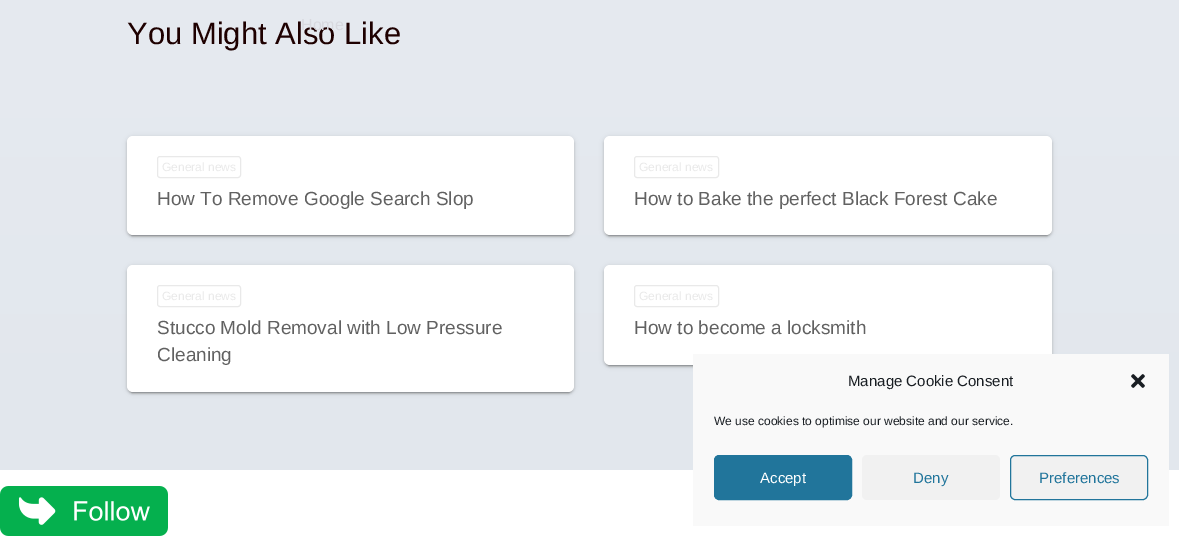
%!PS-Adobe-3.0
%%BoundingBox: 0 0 1179 536
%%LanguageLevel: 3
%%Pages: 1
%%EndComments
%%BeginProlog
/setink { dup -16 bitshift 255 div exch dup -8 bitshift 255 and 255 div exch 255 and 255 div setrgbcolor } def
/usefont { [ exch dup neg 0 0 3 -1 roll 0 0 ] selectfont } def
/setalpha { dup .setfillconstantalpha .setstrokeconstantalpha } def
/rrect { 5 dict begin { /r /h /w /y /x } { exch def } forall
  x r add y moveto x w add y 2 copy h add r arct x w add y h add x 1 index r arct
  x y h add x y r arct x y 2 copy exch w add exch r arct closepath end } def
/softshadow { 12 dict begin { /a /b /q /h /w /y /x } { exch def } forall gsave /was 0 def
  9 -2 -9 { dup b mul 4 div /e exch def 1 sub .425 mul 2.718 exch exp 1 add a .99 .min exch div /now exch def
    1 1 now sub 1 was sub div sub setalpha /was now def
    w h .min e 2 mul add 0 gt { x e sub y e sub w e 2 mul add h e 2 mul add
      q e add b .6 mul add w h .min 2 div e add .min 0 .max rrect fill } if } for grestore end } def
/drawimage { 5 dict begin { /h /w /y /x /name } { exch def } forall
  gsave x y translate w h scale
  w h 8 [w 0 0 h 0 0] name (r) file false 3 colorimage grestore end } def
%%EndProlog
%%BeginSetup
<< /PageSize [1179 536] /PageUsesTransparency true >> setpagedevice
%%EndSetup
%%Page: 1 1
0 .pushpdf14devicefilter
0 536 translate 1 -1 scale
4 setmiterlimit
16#FFFFFF setink
0 0 1179 536 rectfill
gsave 0 0 moveto 1179 0 lineto 1179 470 lineto 0 470 lineto closepath clip newpath
<< /ShadingType 2 /ColorSpace /DeviceRGB /Coords [589 -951 590 470] /Extend [true true] /Function << /FunctionType 3 /Domain [0 1] /Functions [<< /FunctionType 2 /Domain [0 1] /C0 [0.835 0.871 0.906] /C1 [0.91 0.922 0.949] /N 1 >> << /FunctionType 2 /Domain [0 1] /C0 [0.91 0.922 0.949] /C1 [0.886 0.906 0.929] /N 1 >>] /Bounds [0.5] /Encode [0 1 0 1] >> >> shfill grestore
/LiberationSans-Regular 31 usefont
16#1E0000 setink
127 44 moveto (You Might Also Like) show
/LiberationSans-Regular 16 usefont
16#D8D9DF setink
301 30 moveto (Home) show
16#000000 setink
127 137 447 99 6 2.5 0.12 softshadow
129 141 443 95 4 0.5 0.2 softshadow
127 138 447 99 6 1 0.14 softshadow
16#FFFFFF setink
127 136 447 99 6 rrect fill
16#E9E9E9 setink
157.5 156.5 83 21 2.5 rrect stroke
/LiberationSans-Regular 12 usefont
162 171 moveto (General news) show
/LiberationSans-Regular 19 usefont
16#616161 setink
157 205 moveto (How To Remove Google Search Slop) show
16#000000 setink
604 137 448 99 6 2.5 0.12 softshadow
606 141 444 95 4 0.5 0.2 softshadow
604 138 448 99 6 1 0.14 softshadow
16#FFFFFF setink
604 136 448 99 6 rrect fill
16#E9E9E9 setink
634.5 156.5 84 21 2.5 rrect stroke
/LiberationSans-Regular 12 usefont
639 171 moveto (General news) show
/LiberationSans-Regular 19 usefont
16#616161 setink
634 205 moveto (How to Bake the perfect Black Forest Cake) show
16#000000 setink
127 266 447 127 6 2.5 0.12 softshadow
129 270 443 123 4 0.5 0.2 softshadow
127 267 447 127 6 1 0.14 softshadow
16#FFFFFF setink
127 265 447 127 6 rrect fill
16#E9E9E9 setink
157.5 285.5 83 21 2.5 rrect stroke
/LiberationSans-Regular 12 usefont
162 300 moveto (General news) show
/LiberationSans-Regular 19 usefont
16#616161 setink
157 334 moveto (Stucco Mold Removal with Low Pressure) show
157 361 moveto (Cleaning) show
16#000000 setink
604 266 448 100 6 2.5 0.12 softshadow
606 270 444 96 4 0.5 0.2 softshadow
604 267 448 100 6 1 0.14 softshadow
16#FFFFFF setink
604 265 448 100 6 rrect fill
16#E9E9E9 setink
634.5 285.5 84 21 2.5 rrect stroke
/LiberationSans-Regular 12 usefont
639 300 moveto (General news) show
/LiberationSans-Regular 19 usefont
16#616161 setink
634 334 moveto (How to become a locksmith) show
16#F9F9F9 setink
693 354 476 172 rectfill
/LiberationSans-Regular 15 usefont
16#191E23 setink
848 386 moveto (Manage Cookie Consent) show
(img1.raw) 1131 374 14 14 drawimage
/LiberationSans-Regular 12 usefont
714 425 moveto (We use cookies to optimise our website and our service.) show
16#21759B setink
714.5 455.5 137 44 4.5 rrect gsave fill grestore
stroke
/LiberationSans-Regular 15 usefont
16#FFFFFF setink
760 483 moveto (Accept) show
16#F1F1F1 setink
862 455 138 45 5 rrect fill
16#21759B setink
913 483 moveto (Deny) show
16#F1F1F1 setink
1010.5 455.5 137 44 4.5 rrect gsave fill grestore
16#21759B setink
stroke
1039 483 moveto (Preferences) show
(img2.raw) 0 486 168 50 drawimage
.poppdf14devicefilter showpage
%%EOF
